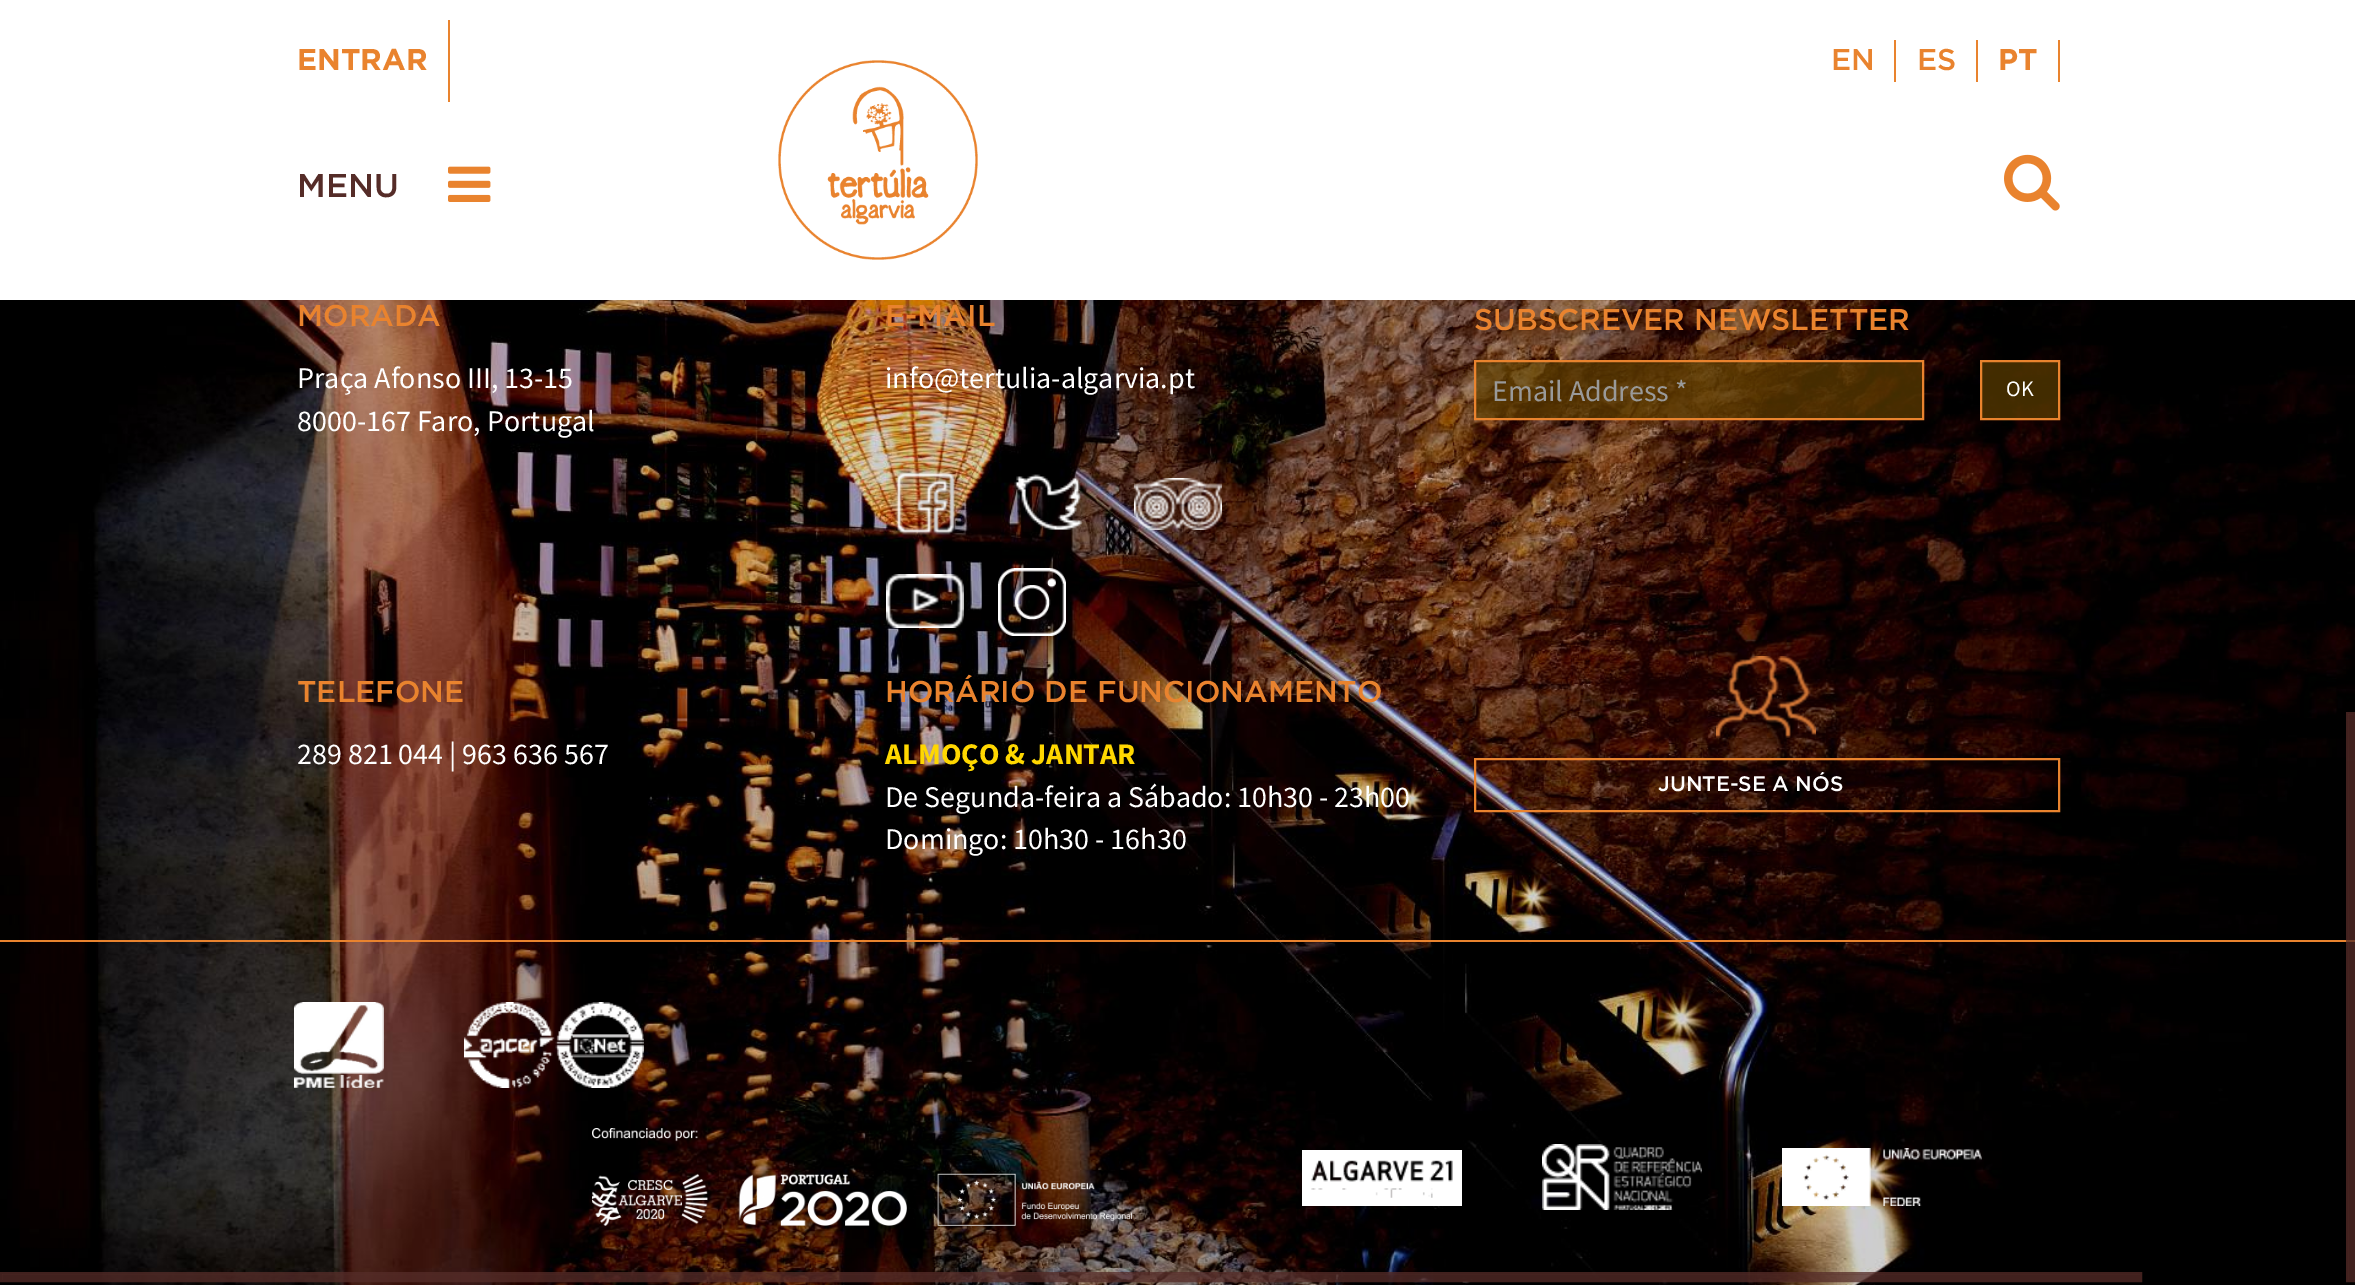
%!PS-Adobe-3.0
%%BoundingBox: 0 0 2355 1285
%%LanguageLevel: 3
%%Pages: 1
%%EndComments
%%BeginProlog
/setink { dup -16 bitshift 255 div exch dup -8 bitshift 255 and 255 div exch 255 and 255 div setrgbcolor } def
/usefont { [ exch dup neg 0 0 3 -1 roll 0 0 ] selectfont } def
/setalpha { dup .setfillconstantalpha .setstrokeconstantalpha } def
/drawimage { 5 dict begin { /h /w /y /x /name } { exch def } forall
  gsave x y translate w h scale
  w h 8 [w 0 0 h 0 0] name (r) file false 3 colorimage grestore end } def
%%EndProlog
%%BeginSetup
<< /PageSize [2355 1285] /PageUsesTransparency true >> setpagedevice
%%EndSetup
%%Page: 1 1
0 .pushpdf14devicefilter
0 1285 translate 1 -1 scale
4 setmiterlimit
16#FFFFFF setink
0 0 2355 1285 rectfill
16#E9832E setink
448 20 2 82 rectfill
/Gotham-Bold 30 usefont
297 70 moveto (ENTRAR) show
/Gotham-Medium 33 usefont
16#552C28 setink
297 197 moveto (MENU) show
(img1.raw) 448 166 43 36 drawimage
(img2.raw) 778 60 200 200 drawimage
16#E9832E setink
1894 40 2 42 rectfill
/Gotham-Medium 30 usefont
1831 70 moveto (EN) show
1976 40 2 42 rectfill
1917 70 moveto (ES) show
2058 40 2 42 rectfill
/Gotham-Bold 30 usefont
1998 70 moveto (PT) show
(img3.raw) 2004 154 56 57 drawimage
(img4.raw) 0 300 2355 985 drawimage
/Gotham-Medium 30 usefont
297 326 moveto (MORADA) show
/SourceSansPro-Regular 30 usefont
16#FFFFFF setink
297 388 moveto (Praça Afonso III, 13-15) show
297 431 moveto (8000-167 Faro, Portugal) show
/Gotham-Medium 30 usefont
16#E9832E setink
885 326 moveto (E-MAIL) show
/SourceSansPro-Regular 30 usefont
16#FFFFFF setink
885 388 moveto (info@tertulia-algarvia.pt) show
(img5.raw) 890 466 73 75 drawimage
(img6.raw) 1012 473 77 65 drawimage
(img7.raw) 1134 478 88 52 drawimage
(img8.raw) 886 574 78 54 drawimage
(img9.raw) 998 568 68 68 drawimage
/Gotham-Medium 30 usefont
16#E9832E setink
1474 330 moveto (SUBSCREVER NEWSLETTER) show
0.71 setalpha
16#5D3E00 setink
1476 362 446 56 rectfill
0.07 setalpha
16#000000 setink
1476 362 446 2 rectfill
1 setalpha
16#E9832E setink
2 setlinewidth
1475 361 448 58 rectstroke
/SourceSansPro-Regular 30 usefont
16#999999 setink
1492 401 moveto (Email Address *) show
0.71 setalpha
16#5D3E00 setink
1981 361 moveto 2059 361 lineto 2059 419 lineto 1981 419 lineto closepath fill
1 setalpha
16#E9832E setink
1981 361 moveto 2059 361 lineto 2059 419 lineto 1981 419 lineto closepath stroke
/SourceSansPro-Regular 22 usefont
16#FFFFFF setink
2006 396 moveto (OK) show
/Gotham-Medium 30 usefont
16#E9832E setink
297 702 moveto (TELEFONE) show
/SourceSansPro-Regular 30 usefont
16#FFFFFF setink
297 764 moveto (289 821 044 | 963 636 567) show
/Gotham-Medium 30 usefont
16#E9832E setink
885 702 moveto (HORÁRIO DE FUNCIONAMENTO) show
/SourceSansPro-Bold 30 usefont
16#FFD700 setink
885 764 moveto (ALMOÇO & JANTAR) show
/SourceSansPro-Regular 30 usefont
16#FFFFFF setink
885 807 moveto (De Segunda-feira a Sábado: 10h30 - 23h00) show
885 849 moveto (Domingo: 10h30 - 16h30) show
(img10.raw) 1716 656 100 82 drawimage
16#E9832E setink
1475 759 584 52 rectstroke
/Gotham-Medium 21 usefont
16#FFFFFF setink
1658 791 moveto (JUNTE-SE A NÓS) show
16#E9832E setink
0 940 2355 2 rectfill
(img11.raw) 294 1002 90 86 drawimage
(img12.raw) 464 1002 180 86 drawimage
(img13.raw) 592 1128 540 98 drawimage
(img14.raw) 1302 1150 160 56 drawimage
(img15.raw) 1542 1144 160 66 drawimage
(img16.raw) 1782 1148 200 58 drawimage
0.76 setalpha
16#552C28 setink
2 1274 2138 6 rectfill
1 1273 2140 8 rectstroke
2348 714 6 566 rectfill
2347 713 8 568 rectstroke
.poppdf14devicefilter showpage
%%EOF
